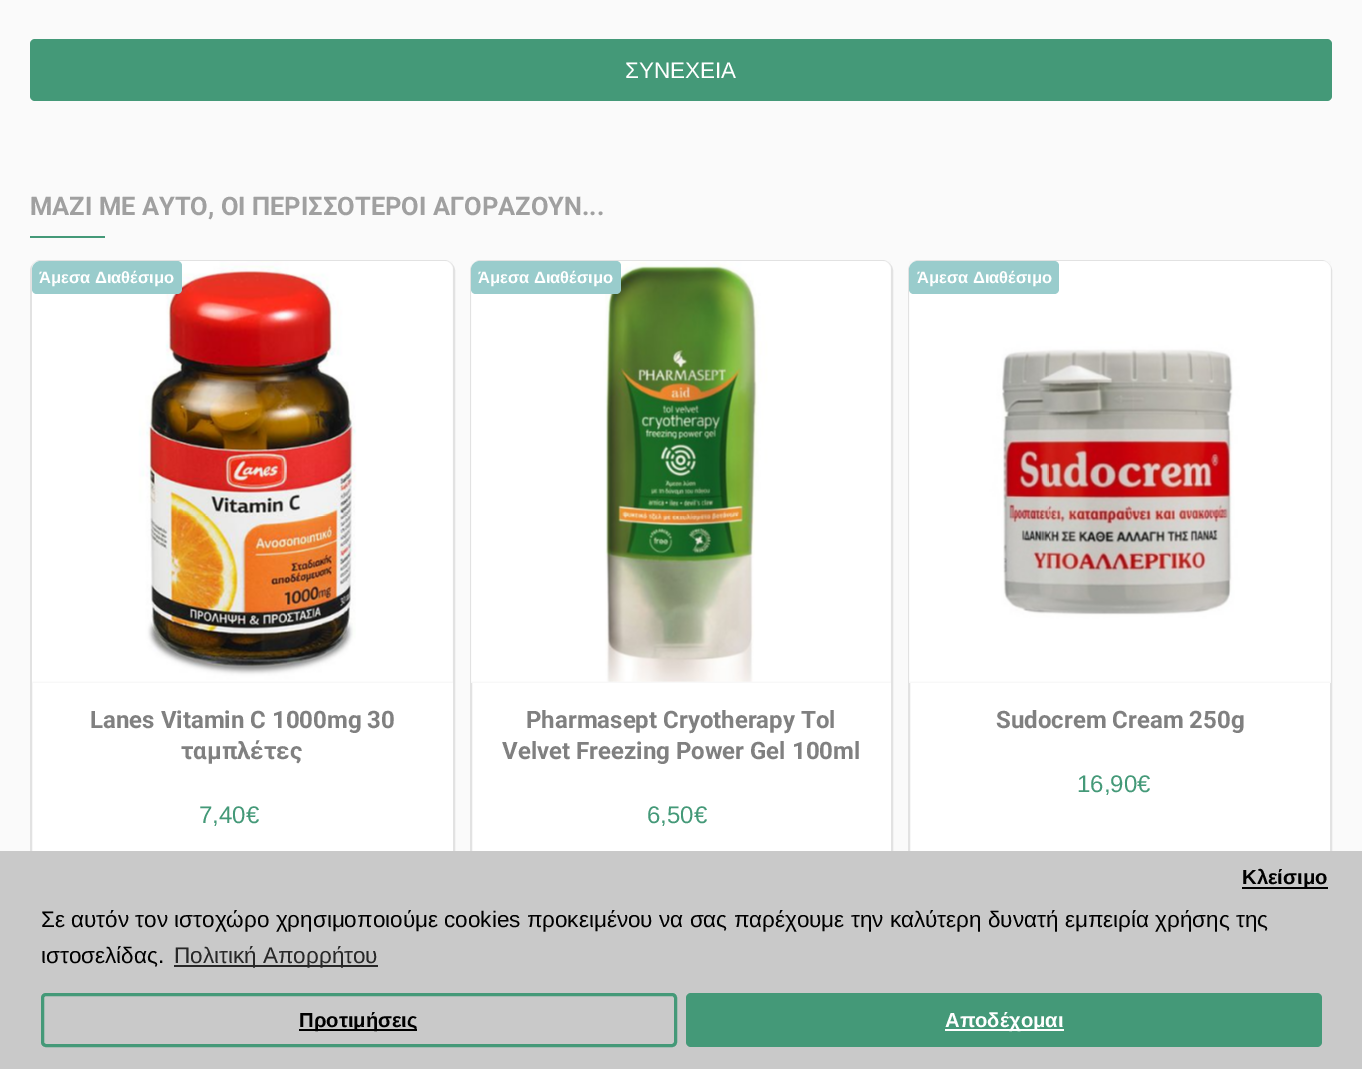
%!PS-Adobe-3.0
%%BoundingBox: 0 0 1362 1069
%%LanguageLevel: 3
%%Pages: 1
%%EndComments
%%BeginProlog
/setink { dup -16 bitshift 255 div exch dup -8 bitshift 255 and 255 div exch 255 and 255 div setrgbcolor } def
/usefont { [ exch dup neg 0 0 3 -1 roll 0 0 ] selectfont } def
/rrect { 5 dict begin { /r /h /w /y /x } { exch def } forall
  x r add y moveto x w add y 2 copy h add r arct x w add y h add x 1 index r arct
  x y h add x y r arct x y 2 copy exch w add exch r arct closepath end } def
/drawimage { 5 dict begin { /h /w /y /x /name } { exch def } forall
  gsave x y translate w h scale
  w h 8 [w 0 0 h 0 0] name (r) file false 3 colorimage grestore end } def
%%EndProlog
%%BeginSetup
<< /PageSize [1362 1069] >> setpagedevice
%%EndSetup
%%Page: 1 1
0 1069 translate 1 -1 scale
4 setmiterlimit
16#FAFAFA setink
0 0 1362 1069 rectfill
16#449978 setink
30 39 1302 62 5 rrect fill
/LiberationSans-Regular 22.5 usefont
16#FFFFFF setink
625 78 moveto (ΣΥΝΕΧΕΙΑ) show
/Roboto-Bold 25.5 usefont
16#A0A0A0 setink
30 215 moveto (ΜΑΖΙ ΜΕ ΑΥΤΟ, ΟΙ ΠΕΡΙΣΣΟΤΕΡΟΙ ΑΓΟΡΑΖΟΥΝ...) show
16#449978 setink
30 236 75 2 rectfill
16#FFFFFF setink
31 261 423 743 10 rrect gsave fill grestore
16#E2E2E2 setink
2 setlinewidth
stroke
16#F8F8F8 setink
41 261 moveto 444 261 lineto 449 261 453 265 453 270 curveto 453 683 lineto 32 683 lineto 32 270 lineto 32 265 36 261 41 261 curveto closepath fill
(img1.raw) 32 261 421 421 drawimage
16#99CCCC setink
41 261 moveto 177 261 lineto 180 261 182 263 182 266 curveto 182 289 lineto 182 292 180 294 177 294 curveto 37 294 lineto 34 294 32 292 32 289 curveto 32 270 lineto 32 265 36 261 41 261 curveto closepath fill
/LiberationSans-Bold 16.5 usefont
16#FFFFFF setink
39 283 moveto (Άμεσα Διαθέσιμο) show
/Roboto-Bold 24 usefont
16#808080 setink
90 728 moveto (Lanes Vitamin C 1000mg 30) show
181 759 moveto (ταμπλέτες) show
/LiberationSans-Regular 24 usefont
16#449978 setink
199 823 moveto (7,40€) show
16#FFFFFF setink
471 261 421 743 10 rrect gsave fill grestore
16#E2E2E2 setink
stroke
16#F8F8F8 setink
480 261 moveto 882 261 lineto 887 261 891 265 891 270 curveto 891 683 lineto 471 683 lineto 471 270 lineto 471 265 475 261 480 261 curveto closepath fill
(img2.raw) 471 261 420 421 drawimage
16#99CCCC setink
480 261 moveto 616 261 lineto 619 261 621 263 621 266 curveto 621 289 lineto 621 292 619 294 616 294 curveto 476 294 lineto 473 294 471 292 471 289 curveto 471 270 lineto 471 265 475 261 480 261 curveto closepath fill
/LiberationSans-Bold 16.5 usefont
16#FFFFFF setink
478 283 moveto (Άμεσα Διαθέσιμο) show
/Roboto-Bold 24 usefont
16#808080 setink
526 728 moveto (Pharmasept Cryotherapy Tol) show
502 759 moveto (Velvet Freezing Power Gel 100ml) show
/LiberationSans-Regular 24 usefont
16#449978 setink
647 823 moveto (6,50€) show
16#FFFFFF setink
909 261 422 743 10 rrect gsave fill grestore
16#E2E2E2 setink
stroke
16#F8F8F8 setink
918 261 moveto 1322 261 lineto 1327 261 1331 265 1331 270 curveto 1331 683 lineto 909 683 lineto 909 270 lineto 909 265 913 261 918 261 curveto closepath fill
(img3.raw) 909 261 422 421 drawimage
16#99CCCC setink
918 261 moveto 1054 261 lineto 1057 261 1059 263 1059 266 curveto 1059 289 lineto 1059 292 1057 294 1054 294 curveto 914 294 lineto 911 294 909 292 909 289 curveto 909 270 lineto 909 265 913 261 918 261 curveto closepath fill
/LiberationSans-Bold 16.5 usefont
16#FFFFFF setink
917 283 moveto (Άμεσα Διαθέσιμο) show
/Roboto-Bold 24 usefont
16#808080 setink
996 728 moveto (Sudocrem Cream 250g) show
/LiberationSans-Regular 24 usefont
16#449978 setink
1077 792 moveto (16,90€) show
16#C9C9C9 setink
0 851 1362 218 rectfill
16#000000 setink
1242 887 86 2 rectfill
/LiberationSans-Bold 20.25 usefont
1242 884 moveto (Κλείσιμο) show
16#449978 setink
3 setlinewidth
42.5 994.5 633 51 3.5 rrect stroke
16#000000 setink
299 1029 118 2 rectfill
299 1027 moveto (Προτιμήσεις) show
16#449978 setink
686 993 636 54 5 rrect fill
16#FFFFFF setink
945 1029 119 2 rectfill
945 1027 moveto (Αποδέχομαι) show
/LiberationSans-Regular 22.5 usefont
16#000000 setink
41 927 moveto (Σε αυτόν τον ιστοχώρο χρησιμοποιούμε cookies προκειμένου να σας παρέχουμε την καλύτερη δυνατή εμπειρία χρήσης της) show
41 963 moveto (ιστοσελίδας.) show
16#282828 setink
174 965 204 2 rectfill
174 963 moveto (Πολιτική Απορρήτου) show
showpage
%%EOF
